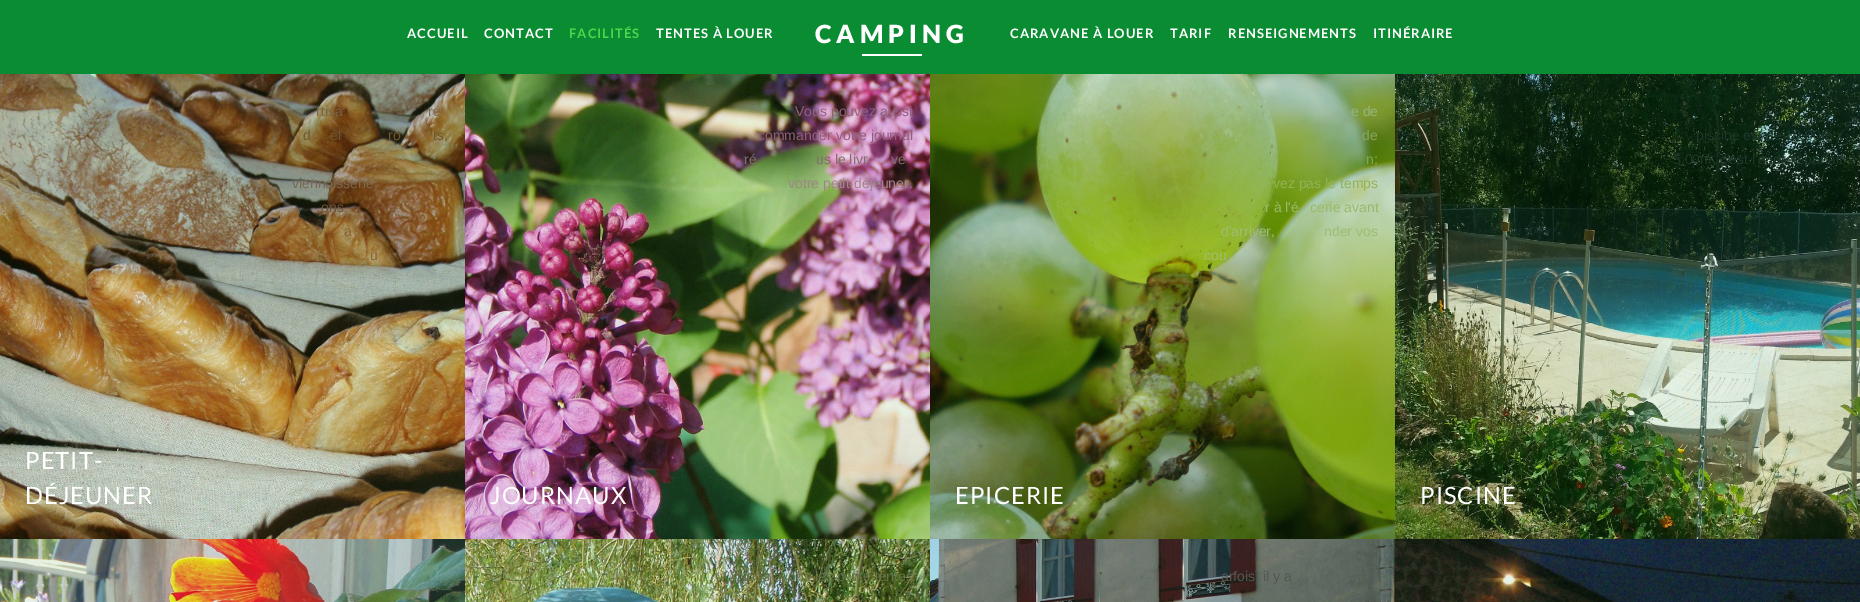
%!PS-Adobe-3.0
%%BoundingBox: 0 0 1860 602
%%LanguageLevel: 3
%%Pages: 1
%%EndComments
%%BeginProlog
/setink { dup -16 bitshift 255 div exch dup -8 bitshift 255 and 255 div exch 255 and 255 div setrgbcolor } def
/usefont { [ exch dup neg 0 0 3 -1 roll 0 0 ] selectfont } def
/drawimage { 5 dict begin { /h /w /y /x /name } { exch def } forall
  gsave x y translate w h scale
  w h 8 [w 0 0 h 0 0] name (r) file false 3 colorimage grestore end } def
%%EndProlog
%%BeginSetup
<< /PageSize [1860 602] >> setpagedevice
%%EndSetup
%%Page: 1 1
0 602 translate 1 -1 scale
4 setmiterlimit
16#FFFFFF setink
0 0 1860 602 rectfill
16#0A8C33 setink
0 0 1860 74 rectfill
/Lato-Bold 13 usefont
16#FFFFFF setink
407 38 moveto 1 0 (ACCUEIL) ashow
484 38 moveto 1 0 (CONTACT) ashow
16#4AD84A setink
569 38 moveto 1 0 (FACILITÉS) ashow
16#FFFFFF setink
656 38 moveto 1 0 (TENTES À LOUER) ashow
/Lato-Black 25 usefont
815 43 moveto 5 0 (CAMPING) ashow
862 54 60 2 rectfill
/Lato-Bold 13 usefont
1010 38 moveto 1 0 (CARAVANE À LOUER) ashow
1170 38 moveto 1 0 (TARIF) ashow
1228 38 moveto 1 0 (RENSEIGNEMENTS) ashow
1373 38 moveto 1 0 (ITINÉRAIRE) ashow
(img1.raw) 0 74 465 465 drawimage
/LiberationSans-Regular 14 usefont
16#766647 setink
316 116 moveto (rtisa) show
428 116 moveto (ré) show
16#73572C setink
[
    [(d) 303 140]
    [(él) 330 140]
    [(ro) 388 140]
    [(ts,) 433 140]
] { aload pop moveto show } forall
16#79674E setink
292 188 moveto (viennoisserie) show
16#6E5235 setink
321 212 moveto (ons) show
16#896132 setink
344 236 moveto (a) show
362 260 moveto (..u) show
/Lato-Regular 23.75 usefont
16#FFFFFF setink
25 469 moveto 1 0 (PETIT-) ashow
25 504 moveto 1 0 (DÉJEUNER) ashow
(img2.raw) 465 74 465 465 drawimage
/LiberationSans-Regular 14 usefont
16#915F7E setink
795 116 moveto (Vous pouvez aussi) show
758 140 moveto (commander votre journal) show
16#81706A setink
[
    [(ré) 744 164]
    [(us le livr) 816 164]
    [(ve) 891 164]
] { aload pop moveto show } forall
16#9D8883 setink
788 188 moveto (votre petit-déjeuner.) show
/Lato-Regular 23.75 usefont
16#FFFFFF setink
490 504 moveto 1 0 (JOURNAUX) ashow
(img3.raw) 930 74 465 465 drawimage
/LiberationSans-Regular 14 usefont
16#95B57F setink
1351 116 moveto (e de) show
16#87AA60 setink
1362 140 moveto (de) show
16#83A74B setink
1366 164 moveto (n;) show
16#92B358 setink
1273 188 moveto (vez pas le temps) show
16#9ABA6A setink
1265 212 moveto (r à l'é) show
1310 212 moveto (cerie avant) show
16#9FBD72 setink
[
    [(d'arriver,) 1221 236]
    [(nder vos) 1324 236]
    [(cou) 1204 260]
] { aload pop moveto show } forall
/Lato-Regular 23.75 usefont
16#FFFFFF setink
955 504 moveto 1 0 (EPICERIE) ashow
(img4.raw) 1395 74 465 465 drawimage
/LiberationSans-Regular 14 usefont
16#1C3828 setink
1696 140 moveto (piscine est de 10,00m x) show
1673 164 moveto (5,00m, c'est l'endroit parfait) show
16#263E32 setink
1707 260 moveto (t) show
1730 260 moveto (v) show
16#207381 setink
1839 308 moveto (.) show
/Lato-Regular 23.75 usefont
16#FFFFFF setink
1420 504 moveto 1 0 (PISCINE) ashow
(img5.raw) 0 539 465 63 drawimage
(img6.raw) 465 539 465 63 drawimage
/LiberationSans-Regular 14 usefont
16#637446 setink
737 581 moveto (Nous avons les petite tentes) show
(img7.raw) 930 539 465 63 drawimage
16#525751 setink
1221 581 moveto (arfois, il y a) show
(img8.raw) 1395 539 465 63 drawimage
showpage
%%EOF
